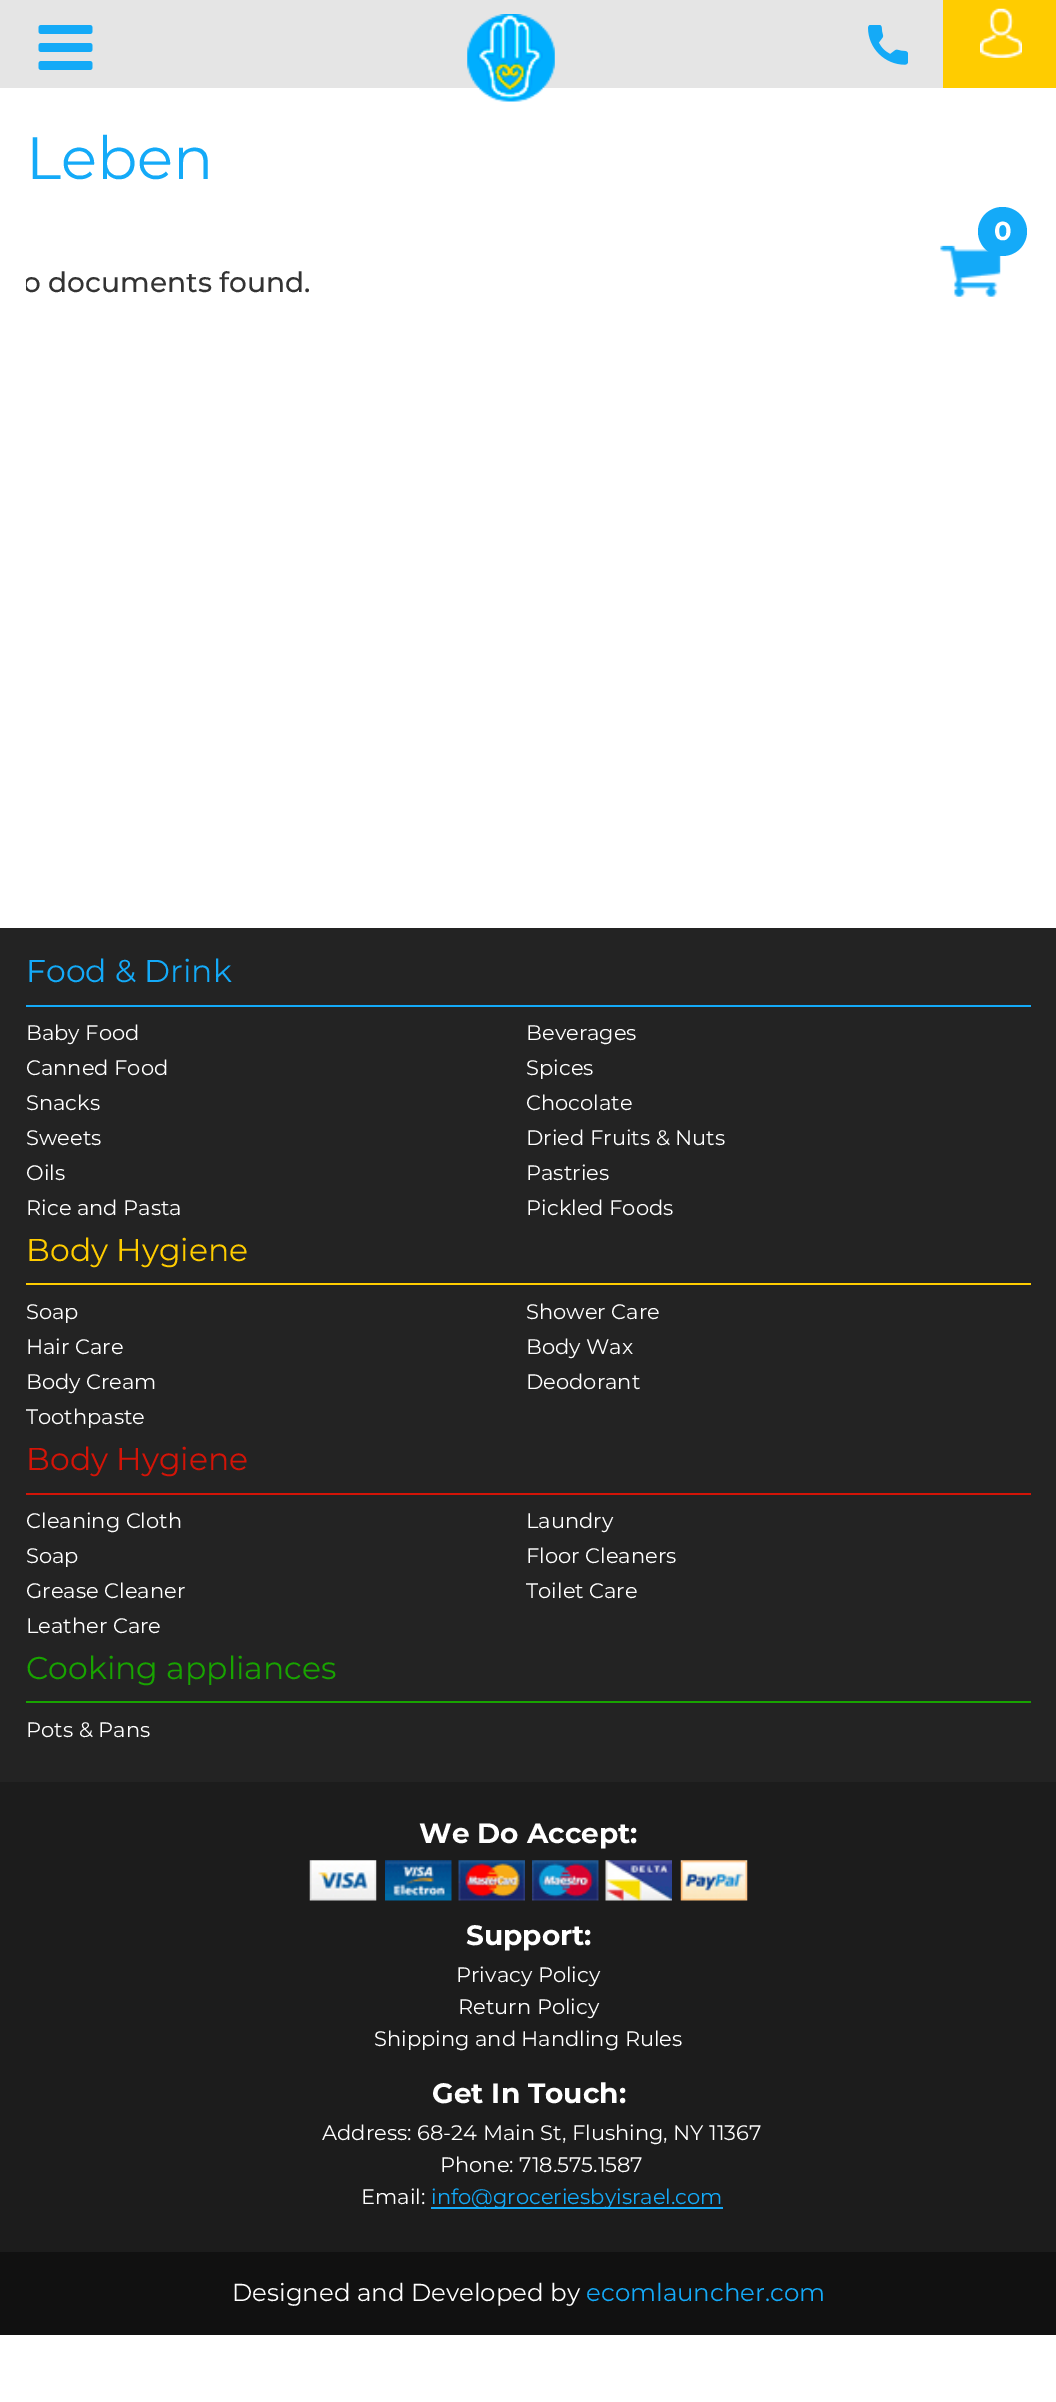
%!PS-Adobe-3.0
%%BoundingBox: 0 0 1056 2402
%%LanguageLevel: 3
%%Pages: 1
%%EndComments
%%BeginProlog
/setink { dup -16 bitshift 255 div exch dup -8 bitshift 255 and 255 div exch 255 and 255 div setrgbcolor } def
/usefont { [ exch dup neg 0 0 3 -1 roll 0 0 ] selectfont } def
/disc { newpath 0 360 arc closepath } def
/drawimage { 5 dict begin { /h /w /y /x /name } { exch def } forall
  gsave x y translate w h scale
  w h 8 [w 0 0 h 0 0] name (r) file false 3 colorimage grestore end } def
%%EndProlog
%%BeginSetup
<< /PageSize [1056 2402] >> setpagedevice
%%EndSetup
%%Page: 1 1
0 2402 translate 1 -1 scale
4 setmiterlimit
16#FFFFFF setink
0 0 1056 2402 rectfill
16#E5E5E5 setink
0 0 943 88 rectfill
(img1.raw) 38 25 55 45 drawimage
(img2.raw) 467 14 88 88 drawimage
(img3.raw) 868 25 40 40 drawimage
16#FFCC00 setink
943 0 113 88 rectfill
(img4.raw) 980 8 42 50 drawimage
/Montserrat-Regular 59.5 usefont
16#14AAF8 setink
26 179 moveto (Leben) show
gsave
26 105 1005 233 rectclip
/Montserrat-Medium 28 usefont
16#333333 setink
23 292 moveto (o documents found.) show
grestore
(img5.raw) 940 245 61 52 drawimage
1002.5 231.5 24.5 disc fill
/Montserrat-Bold 26 usefont
16#FFFFFF setink
994 240 moveto (0) show
16#232323 setink
0 928 1056 854 rectfill
16#14AAF8 setink
26 1005 1005 2 rectfill
/Montserrat-Regular 31.5 usefont
26 982 moveto (Food & Drink) show
/Montserrat-Regular 21 usefont
16#FFFFFF setink
[
    [(Baby Food) 26 1040]
    [(Beverages) 526 1040]
    [(Canned Food) 26 1075]
    [(Spices) 526 1075]
    [(Snacks) 26 1110]
    [(Chocolate) 526 1110]
    [(Sweets) 26 1145]
    [(Dried Fruits & Nuts) 526 1145]
    [(Oils) 26 1180]
    [(Pastries) 526 1180]
    [(Rice and Pasta) 26 1215]
    [(Pickled Foods) 526 1215]
] { aload pop moveto show } forall
16#FFCC00 setink
26 1283 1005 2 rectfill
/Montserrat-Regular 31.5 usefont
26 1261 moveto (Body Hygiene) show
/Montserrat-Regular 21 usefont
16#FFFFFF setink
[
    [(Soap) 26 1319]
    [(Shower Care) 526 1319]
    [(Hair Care) 26 1354]
    [(Body Wax) 526 1354]
    [(Body Cream) 26 1389]
    [(Deodorant) 526 1389]
    [(Toothpaste) 26 1424]
] { aload pop moveto show } forall
16#D31407 setink
26 1493 1005 2 rectfill
/Montserrat-Regular 31.5 usefont
26 1470 moveto (Body Hygiene) show
/Montserrat-Regular 21 usefont
16#FFFFFF setink
[
    [(Cleaning Cloth) 26 1528]
    [(Laundry) 526 1528]
    [(Soap) 26 1563]
    [(Floor Cleaners) 526 1563]
    [(Grease Cleaner) 26 1598]
    [(Toilet Care) 526 1598]
    [(Leather Care) 26 1633]
] { aload pop moveto show } forall
16#18A300 setink
26 1701 1005 2 rectfill
/Montserrat-Regular 31.5 usefont
26 1679 moveto (Cooking appliances) show
/Montserrat-Regular 21 usefont
16#FFFFFF setink
26 1737 moveto (Pots & Pans) show
16#1C1C1C setink
0 1782 1056 470 rectfill
/Montserrat-Bold 28 usefont
16#FFFFFF setink
419 1843 moveto (We Do Accept:) show
(img6.raw) 309 1860 68 41 drawimage
(img7.raw) 385 1860 67 41 drawimage
(img8.raw) 458 1860 67 41 drawimage
(img9.raw) 532 1860 67 41 drawimage
(img10.raw) 605 1860 67 41 drawimage
(img11.raw) 680 1860 68 41 drawimage
466 1945 moveto (Support:) show
/Montserrat-Regular 21 usefont
[
    [(Privacy Policy) 456 1982]
    [(Return Policy) 458 2014]
    [(Shipping and Handling Rules) 374 2046]
] { aload pop moveto show } forall
/Montserrat-Bold 28 usefont
432 2103 moveto (Get In Touch:) show
/Montserrat-Regular 21 usefont
[
    [(Address: 68-24 Main St, Flushing, NY 11367) 322 2140]
    [(Phone: 718.575.1587) 440 2172]
    [(Email:) 361 2204]
] { aload pop moveto show } forall
16#14AAF8 setink
431 2207 292 2 rectfill
431 2204 moveto (info@groceriesbyisrael.com) show
16#111111 setink
0 2252 1056 83 rectfill
/Montserrat-Regular 24.5 usefont
16#FFFFFF setink
232 2301 moveto (Designed and Developed by) show
16#14AAF8 setink
586 2301 moveto (ecomlauncher.com) show
showpage
%%EOF
